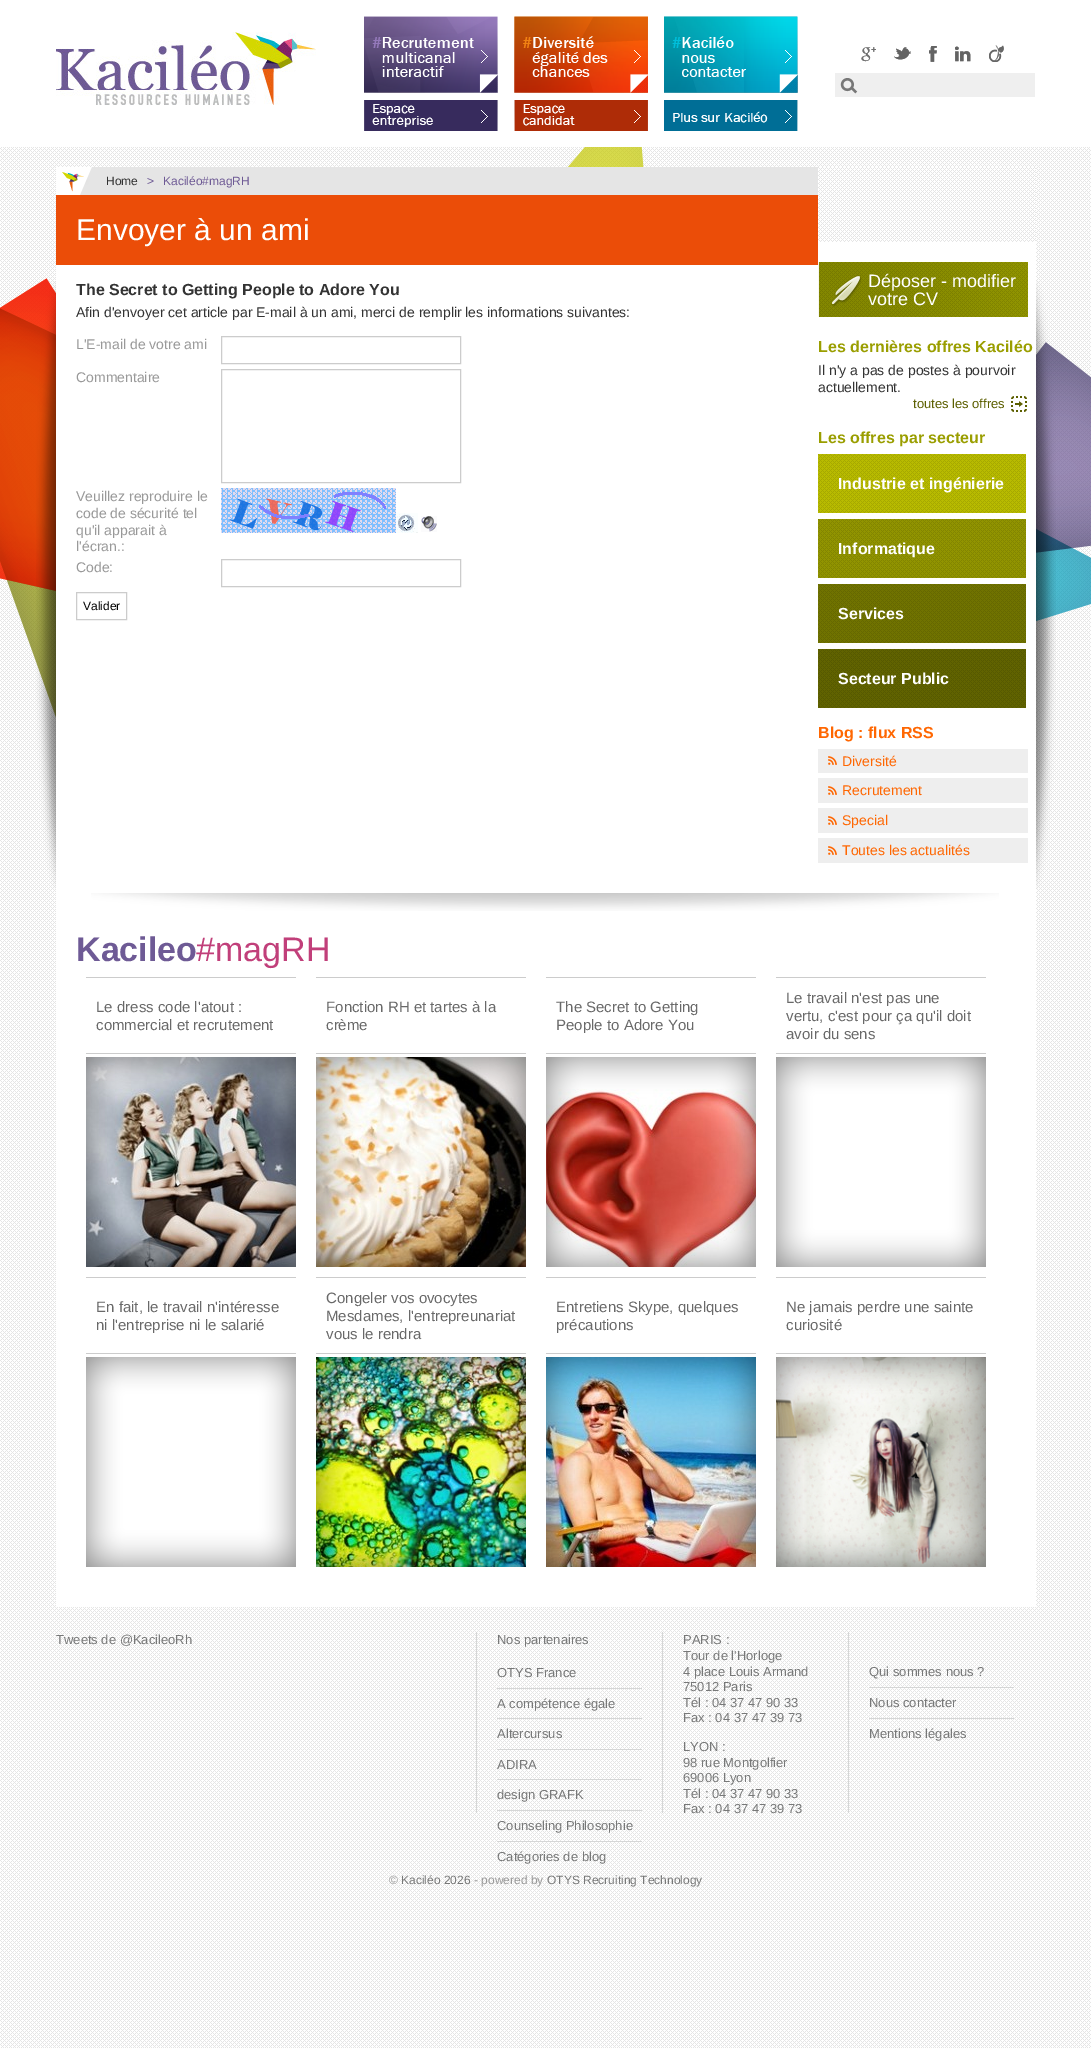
%!PS-Adobe-3.0
%%BoundingBox: 0 0 1091 2048
%%LanguageLevel: 3
%%Pages: 1
%%EndComments
%%BeginProlog
/setink { dup -16 bitshift 255 div exch dup -8 bitshift 255 and 255 div exch 255 and 255 div setrgbcolor } def
/usefont { [ exch dup neg 0 0 3 -1 roll 0 0 ] selectfont } def
/drawimage { 5 dict begin { /h /w /y /x /name } { exch def } forall
  gsave x y translate w h scale
  w h 8 [w 0 0 h 0 0] name (r) file false 3 colorimage grestore end } def
%%EndProlog
%%BeginSetup
<< /PageSize [1091 2048] >> setpagedevice
%%EndSetup
%%Page: 1 1
0 2048 translate 1 -1 scale
4 setmiterlimit
16#FFFFFF setink
0 0 1091 2048 rectfill
(img1.raw) 0 147 1091 1901 drawimage
(img2.raw) 0 147 1091 571 drawimage
(img3.raw) 56 32 260 73 drawimage
(img4.raw) 364 16 134 77 drawimage
(img5.raw) 364 100 134 31 drawimage
(img6.raw) 514 16 134 77 drawimage
(img7.raw) 514 100 134 31 drawimage
(img8.raw) 664 16 134 77 drawimage
(img9.raw) 664 100 134 31 drawimage
(img10.raw) 861 47 15 15 drawimage
(img11.raw) 894 47 17 13 drawimage
(img12.raw) 929 46 8 16 drawimage
(img13.raw) 955 46 16 16 drawimage
(img14.raw) 989 45 15 17 drawimage
16#EFEFEF setink
835 73 200 24 rectfill
(img15.raw) 840 78 18 16 drawimage
16#FFFFFF setink
56 242 980 1365 rectfill
(img16.raw) 36 281 20 608 drawimage
16#E5E5E5 setink
80 167 738 28 rectfill
(img17.raw) 56 167 36 28 drawimage
/LiberationSans-Regular 12 usefont
16#333333 setink
106 185 moveto (Home) show
16#6E5A95 setink
147 185 moveto (>) show
163 185 moveto (Kaciléo#magRH) show
16#EB4D08 setink
56 195 762 70 rectfill
/LiberationSans-Regular 30 usefont
16#FFFFFF setink
76 240 moveto (Envoyer à un ami) show
/LiberationSans-Bold 16 usefont
16#333333 setink
76 295 moveto (The Secret to Getting People to Adore You) show
/LiberationSans-Regular 14 usefont
76 317 moveto (Afin d'envoyer cet article par E-mail à un ami, merci de remplir les informations suivantes:) show
16#999999 setink
76 349 moveto (L'E-mail de votre ami) show
16#CCCCCC setink
221.5 336.5 239 27 rectstroke
16#999999 setink
76 382 moveto (Commentaire) show
16#CCCCCC setink
221.5 369.5 239 113 rectstroke
16#999999 setink
[
    [(Veuillez reproduire le) 76 501]
    [(code de sécurité tel) 76 518]
    [(qu'il apparait à) 76 535]
    [(l'écran.:) 76 551]
] { aload pop moveto show } forall
(img18.raw) 221 488 175 45 drawimage
(img19.raw) 396 513 22 20 drawimage
(img20.raw) 421 516 16 16 drawimage
76 572 moveto (Code:) show
16#CCCCCC setink
221.5 559.5 239 27 rectstroke
76.5 592.5 50 27 rectstroke
/LiberationSans-Regular 12 usefont
16#000000 setink
83 610 moveto (Valider) show
(img21.raw) 818 167 218 75 drawimage
(img22.raw) 818 262 210 55 drawimage
/LiberationSans-Regular 18 usefont
16#FFFFFF setink
868 287 moveto (Déposer - modifier) show
868 305 moveto (votre CV) show
/LiberationSans-Bold 16 usefont
16#9A9E00 setink
818 352 moveto (Les dernières offres Kaciléo) show
/LiberationSans-Regular 14 usefont
16#333333 setink
818 375 moveto (Il n'y a pas de postes à pourvoir) show
818 392 moveto (actuellement.) show
(img23.raw) 1011 396 16 16 drawimage
/LiberationSans-Regular 13 usefont
16#5C5F00 setink
913 408 moveto (toutes les offres) show
/LiberationSans-Bold 16 usefont
16#9A9E00 setink
818 443 moveto (Les offres par secteur) show
(img24.raw) 818 454 208 59 drawimage
16#FFFFFF setink
838 489 moveto (Industrie et ingénierie) show
(img25.raw) 818 519 208 59 drawimage
838 554 moveto (Informatique) show
(img26.raw) 818 584 208 59 drawimage
838 619 moveto (Services) show
(img27.raw) 818 649 208 59 drawimage
838 684 moveto (Secteur Public) show
16#FF6702 setink
818 738 moveto (Blog : flux RSS) show
16#EEEEEE setink
818 749 210 24 rectfill
(img28.raw) 828 756 9 9 drawimage
/LiberationSans-Regular 14 usefont
16#FF6702 setink
842 766 moveto (Diversité) show
16#EEEEEE setink
818 778 210 25 rectfill
(img28.raw) 828 786 9 9 drawimage
16#FF6702 setink
842 795 moveto (Recrutement) show
16#EEEEEE setink
818 808 210 25 rectfill
(img28.raw) 828 816 9 9 drawimage
16#FF6702 setink
842 825 moveto (Special) show
16#EEEEEE setink
818 838 210 25 rectfill
(img28.raw) 828 846 9 9 drawimage
16#FF6702 setink
842 855 moveto (Toutes les actualités) show
(img29.raw) 1036 281 20 608 drawimage
(img30.raw) 91 893 908 18 drawimage
/LiberationSans-Bold 34 usefont
16#6E5A95 setink
76 961 moveto (Kacileo) show
/LiberationSans-Regular 34 usefont
16#C13F7A setink
196 961 moveto (#magRH) show
16#CCCCCC setink
86 977 210 1 rectfill
86 1053 210 1 rectfill
/LiberationSans-Regular 15 usefont
16#696969 setink
96 1012 moveto (Le dress code l'atout :) show
96 1030 moveto (commercial et recrutement) show
(img31.raw) 86 1057 210 210 drawimage
(img32.raw) 86 1057 210 210 drawimage
16#CCCCCC setink
316 977 210 1 rectfill
316 1053 210 1 rectfill
16#696969 setink
326 1012 moveto (Fonction RH et tartes à la) show
326 1030 moveto (crème) show
(img33.raw) 316 1057 210 210 drawimage
(img34.raw) 316 1057 210 210 drawimage
16#CCCCCC setink
546 977 210 1 rectfill
546 1053 210 1 rectfill
16#696969 setink
556 1012 moveto (The Secret to Getting) show
556 1030 moveto (People to Adore You) show
(img36.raw) 546 1089 210 178 drawimage
(img35.raw) 546 1057 210 210 drawimage
16#CCCCCC setink
776 977 210 1 rectfill
776 1053 210 1 rectfill
16#696969 setink
[
    [(Le travail n'est pas une) 786 1003]
    [(vertu, c'est pour ça qu'il doit) 786 1021]
    [(avoir du sens) 786 1039]
] { aload pop moveto show } forall
(img37.raw) 776 1057 210 210 drawimage
16#CCCCCC setink
86 1277 210 1 rectfill
86 1353 210 1 rectfill
16#696969 setink
96 1312 moveto (En fait, le travail n'intéresse) show
96 1330 moveto (ni l'entreprise ni le salarié) show
(img37.raw) 86 1357 210 210 drawimage
16#CCCCCC setink
316 1277 210 1 rectfill
316 1353 210 1 rectfill
16#696969 setink
[
    [(Congeler vos ovocytes) 326 1303]
    [(Mesdames, l'entrepreunariat) 326 1321]
    [(vous le rendra) 326 1339]
] { aload pop moveto show } forall
(img38.raw) 316 1357 210 210 drawimage
(img39.raw) 316 1357 210 210 drawimage
16#CCCCCC setink
546 1277 210 1 rectfill
546 1353 210 1 rectfill
16#696969 setink
556 1312 moveto (Entretiens Skype, quelques) show
556 1330 moveto (précautions) show
(img40.raw) 546 1357 210 210 drawimage
(img41.raw) 546 1357 210 210 drawimage
16#CCCCCC setink
776 1277 210 1 rectfill
776 1353 210 1 rectfill
16#696969 setink
786 1312 moveto (Ne jamais perdre une sainte) show
786 1330 moveto (curiosité) show
(img42.raw) 776 1357 210 210 drawimage
(img43.raw) 776 1357 210 210 drawimage
/LiberationSans-Regular 13 usefont
16#777878 setink
56 1644 moveto (Tweets de @KacileoRh) show
16#D5D6D6 setink
476 1632 1 181 rectfill
16#777878 setink
497 1644 moveto (Nos partenaires) show
497 1677 moveto (OTYS France) show
16#D5D6D6 setink
497 1688 145 1 rectfill
16#777878 setink
497 1708 moveto (A compétence égale) show
16#D5D6D6 setink
497 1718 145 1 rectfill
16#777878 setink
497 1738 moveto (Altercursus) show
16#D5D6D6 setink
497 1749 145 1 rectfill
16#777878 setink
497 1769 moveto (ADIRA) show
16#D5D6D6 setink
497 1779 145 1 rectfill
16#777878 setink
497 1799 moveto (design GRAFK) show
16#D5D6D6 setink
497 1810 145 1 rectfill
16#777878 setink
497 1830 moveto (Counseling Philosophie) show
16#D5D6D6 setink
497 1841 145 1 rectfill
16#777878 setink
497 1861 moveto (Catégories de blog) show
16#D5D6D6 setink
662 1632 1 181 rectfill
16#777878 setink
[
    [(PARIS :) 683 1644]
    [(Tour de l'Horloge) 683 1660]
    [(4 place Louis Armand) 683 1676]
    [(75012 Paris) 683 1691]
    [(Tél : 04 37 47 90 33) 683 1707]
    [(Fax : 04 37 47 39 73) 683 1722]
    [(LYON :) 683 1751]
    [(98 rue Montgolfier) 683 1767]
    [(69006 Lyon) 683 1782]
    [(Tél : 04 37 47 90 33) 683 1798]
    [(Fax : 04 37 47 39 73) 683 1813]
] { aload pop moveto show } forall
16#D5D6D6 setink
848 1632 1 181 rectfill
16#777878 setink
869 1676 moveto (Qui sommes nous ?) show
16#D5D6D6 setink
869 1687 145 1 rectfill
16#777878 setink
869 1707 moveto (Nous contacter) show
16#D5D6D6 setink
869 1718 145 1 rectfill
16#777878 setink
869 1738 moveto (Mentions légales) show
/LiberationSans-Regular 12 usefont
16#999999 setink
389 1884 moveto (©) show
16#777878 setink
401 1884 moveto (Kaciléo 2026) show
16#999999 setink
474 1884 moveto (- powered by) show
16#777878 setink
547 1884 moveto (OTYS Recruiting Technology) show
showpage
%%EOF
